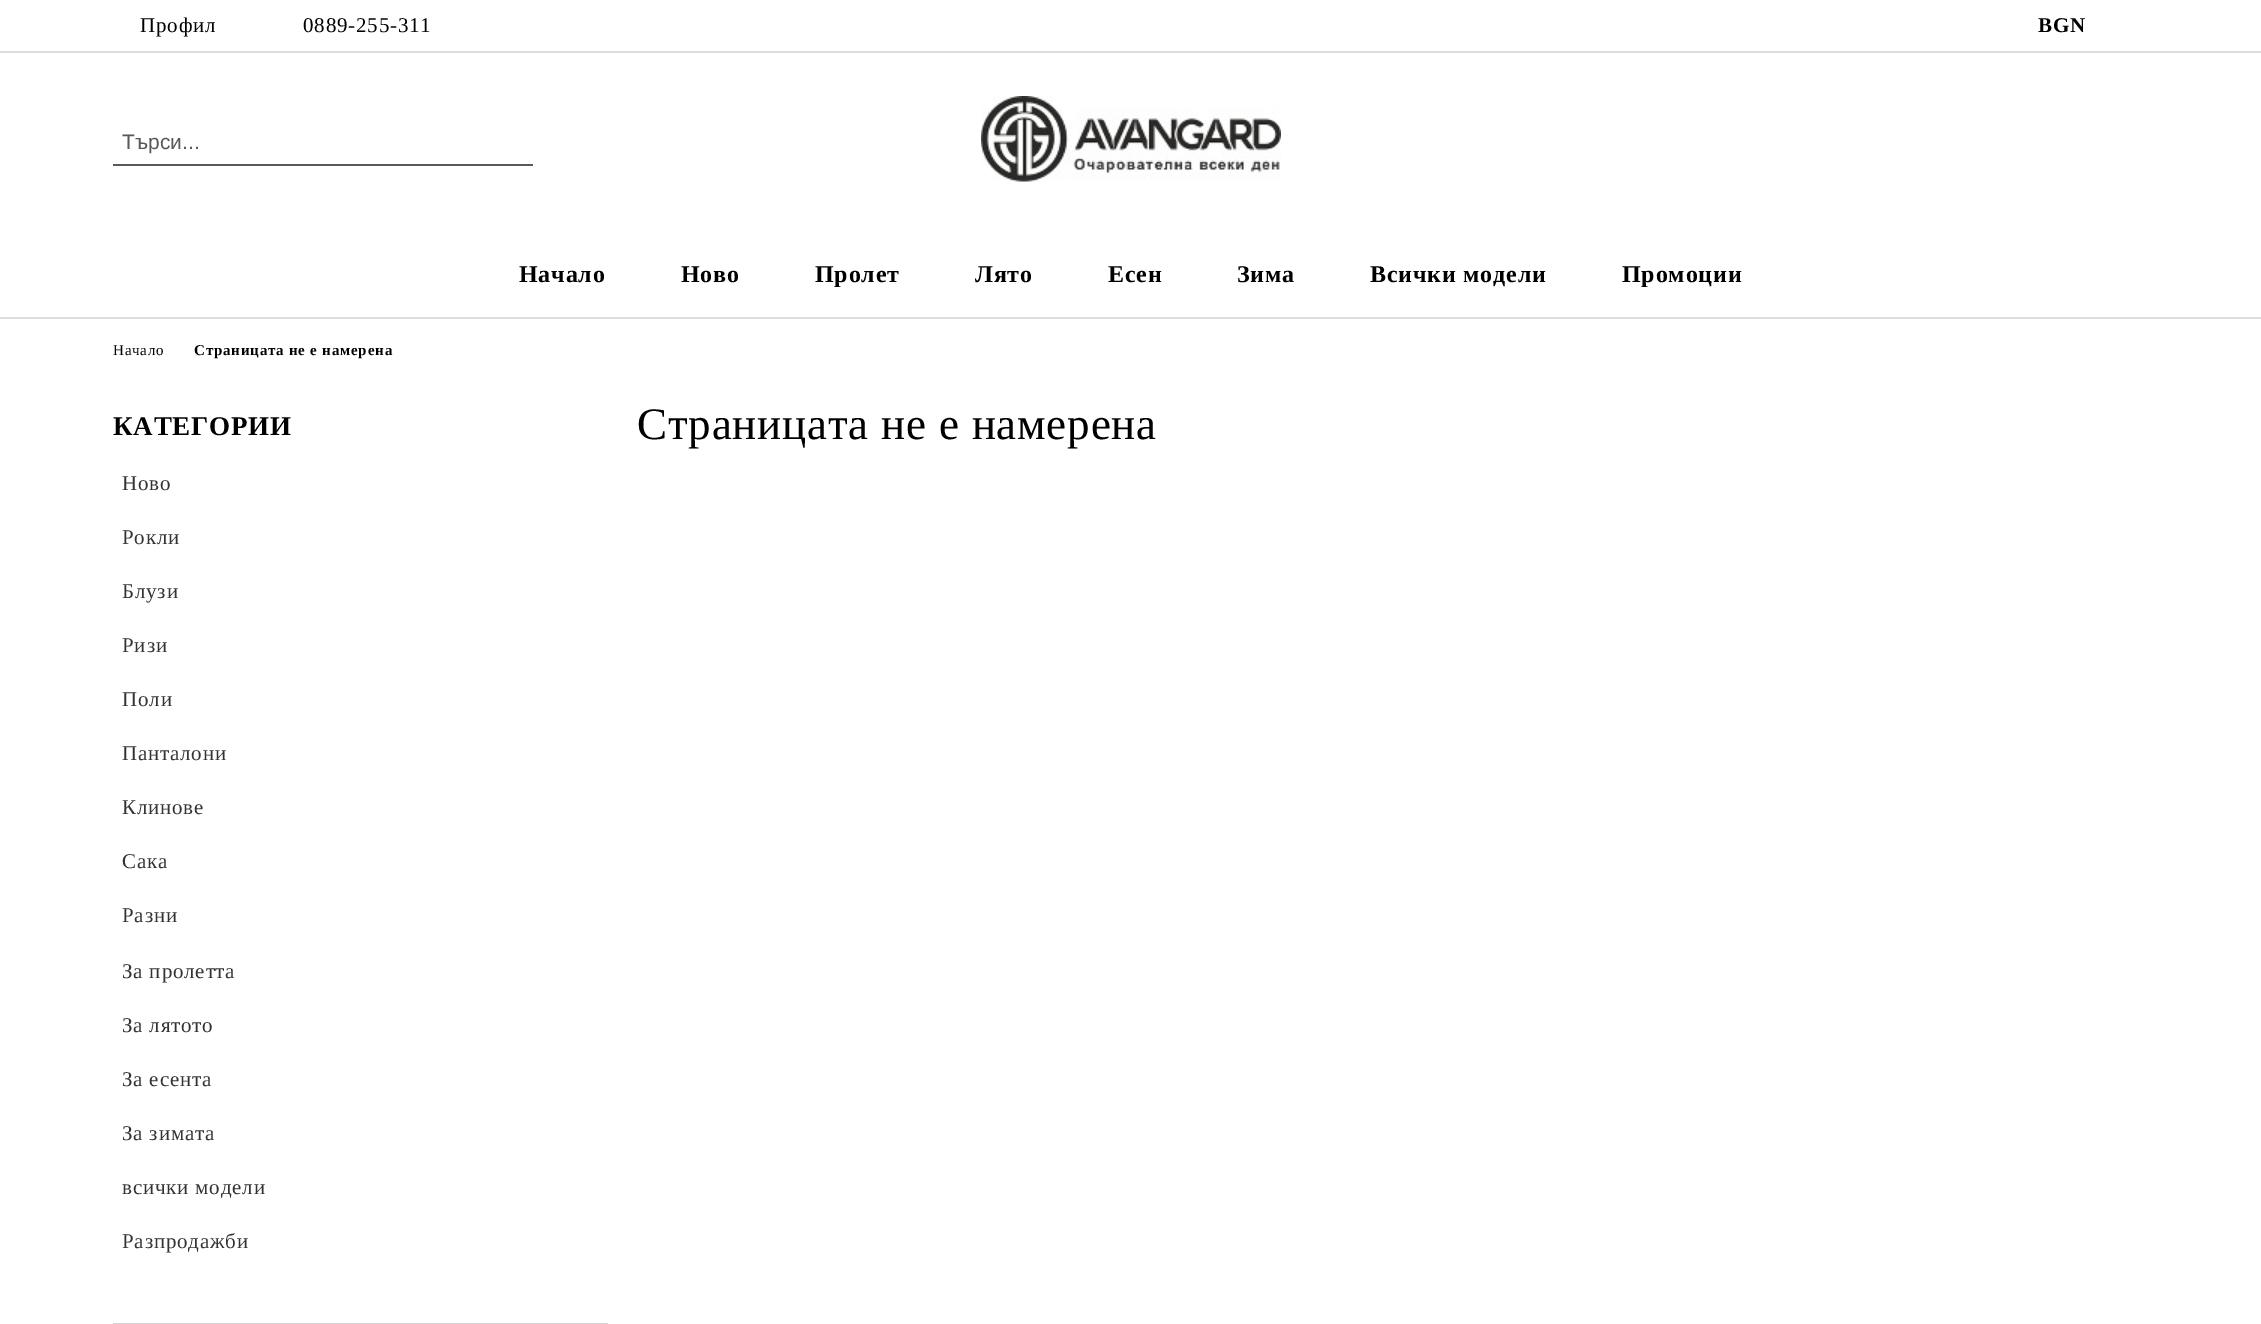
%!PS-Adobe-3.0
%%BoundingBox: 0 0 2261 1324
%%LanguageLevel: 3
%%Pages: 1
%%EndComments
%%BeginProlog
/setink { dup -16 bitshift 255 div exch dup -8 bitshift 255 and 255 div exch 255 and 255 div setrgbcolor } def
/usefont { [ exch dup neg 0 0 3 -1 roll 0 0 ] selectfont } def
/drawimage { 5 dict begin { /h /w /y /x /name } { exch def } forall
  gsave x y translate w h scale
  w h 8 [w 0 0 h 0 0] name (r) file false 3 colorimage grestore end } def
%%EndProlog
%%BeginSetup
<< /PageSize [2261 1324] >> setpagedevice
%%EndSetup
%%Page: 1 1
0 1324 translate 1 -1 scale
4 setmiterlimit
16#FFFFFF setink
0 0 2261 1324 rectfill
16#DDDDDD setink
0 51 2261 2 rectfill
/LiberationSerif-Regular 21 usefont
16#000000 setink
140 32 moveto 0.8 0 (Профил) ashow
303 32 moveto 0.8 0 (0889-255-311) ashow
/LiberationSerif-Bold 21 usefont
2038 32 moveto 0.8 0 (BGN) ashow
16#595959 setink
113 164 420 2 rectfill
/LiberationSans-Regular 21 usefont
122 149 moveto (Търси...) show
(img1.raw) 981 96 300 86 drawimage
16#DDDDDD setink
0 317 2261 2 rectfill
/LiberationSerif-Bold 24 usefont
16#000000 setink
519 282 moveto 0.8 0 (Начало) ashow
681 282 moveto 0.8 0 (Ново) ashow
815 282 moveto 0.8 0 (Пролет) ashow
975 282 moveto 0.8 0 (Лято) ashow
1108 282 moveto 0.8 0 (Есен) ashow
1237 282 moveto 0.8 0 (Зима) ashow
1370 282 moveto 0.8 0 (Всички модели) ashow
1622 282 moveto 0.8 0 (Промоции) ashow
/LiberationSerif-Regular 15 usefont
113 355 moveto 0.8 0 (Начало) ashow
/LiberationSerif-Bold 15 usefont
194 355 moveto 0.8 0 (Страницата не е намерена) ashow
/LiberationSerif-Regular 45 usefont
637 439 moveto 0.8 0 (Страницата не е намерена) ashow
16#D5D5D5 setink
113 1323 495 1 rectfill
/LiberationSerif-Bold 27 usefont
16#000000 setink
113 435 moveto 0.8 0 (КАТЕГОРИИ) ashow
/LiberationSerif-Regular 21 usefont
16#333333 setink
122 490 moveto 0.8 0 (Ново) ashow
122 544 moveto 0.8 0 (Рокли) ashow
122 598 moveto 0.8 0 (Блузи) ashow
122 652 moveto 0.8 0 (Ризи) ashow
122 706 moveto 0.8 0 (Поли) ashow
122 760 moveto 0.8 0 (Панталони) ashow
122 814 moveto 0.8 0 (Клинове) ashow
122 868 moveto 0.8 0 (Сака) ashow
122 922 moveto 0.8 0 (Разни) ashow
122 978 moveto 0.8 0 (За пролетта) ashow
122 1032 moveto 0.8 0 (За лятото) ashow
122 1086 moveto 0.8 0 (За есента) ashow
122 1140 moveto 0.8 0 (За зимата) ashow
122 1194 moveto 0.8 0 (всички модели) ashow
122 1248 moveto 0.8 0 (Разпродажби) ashow
showpage
%%EOF
